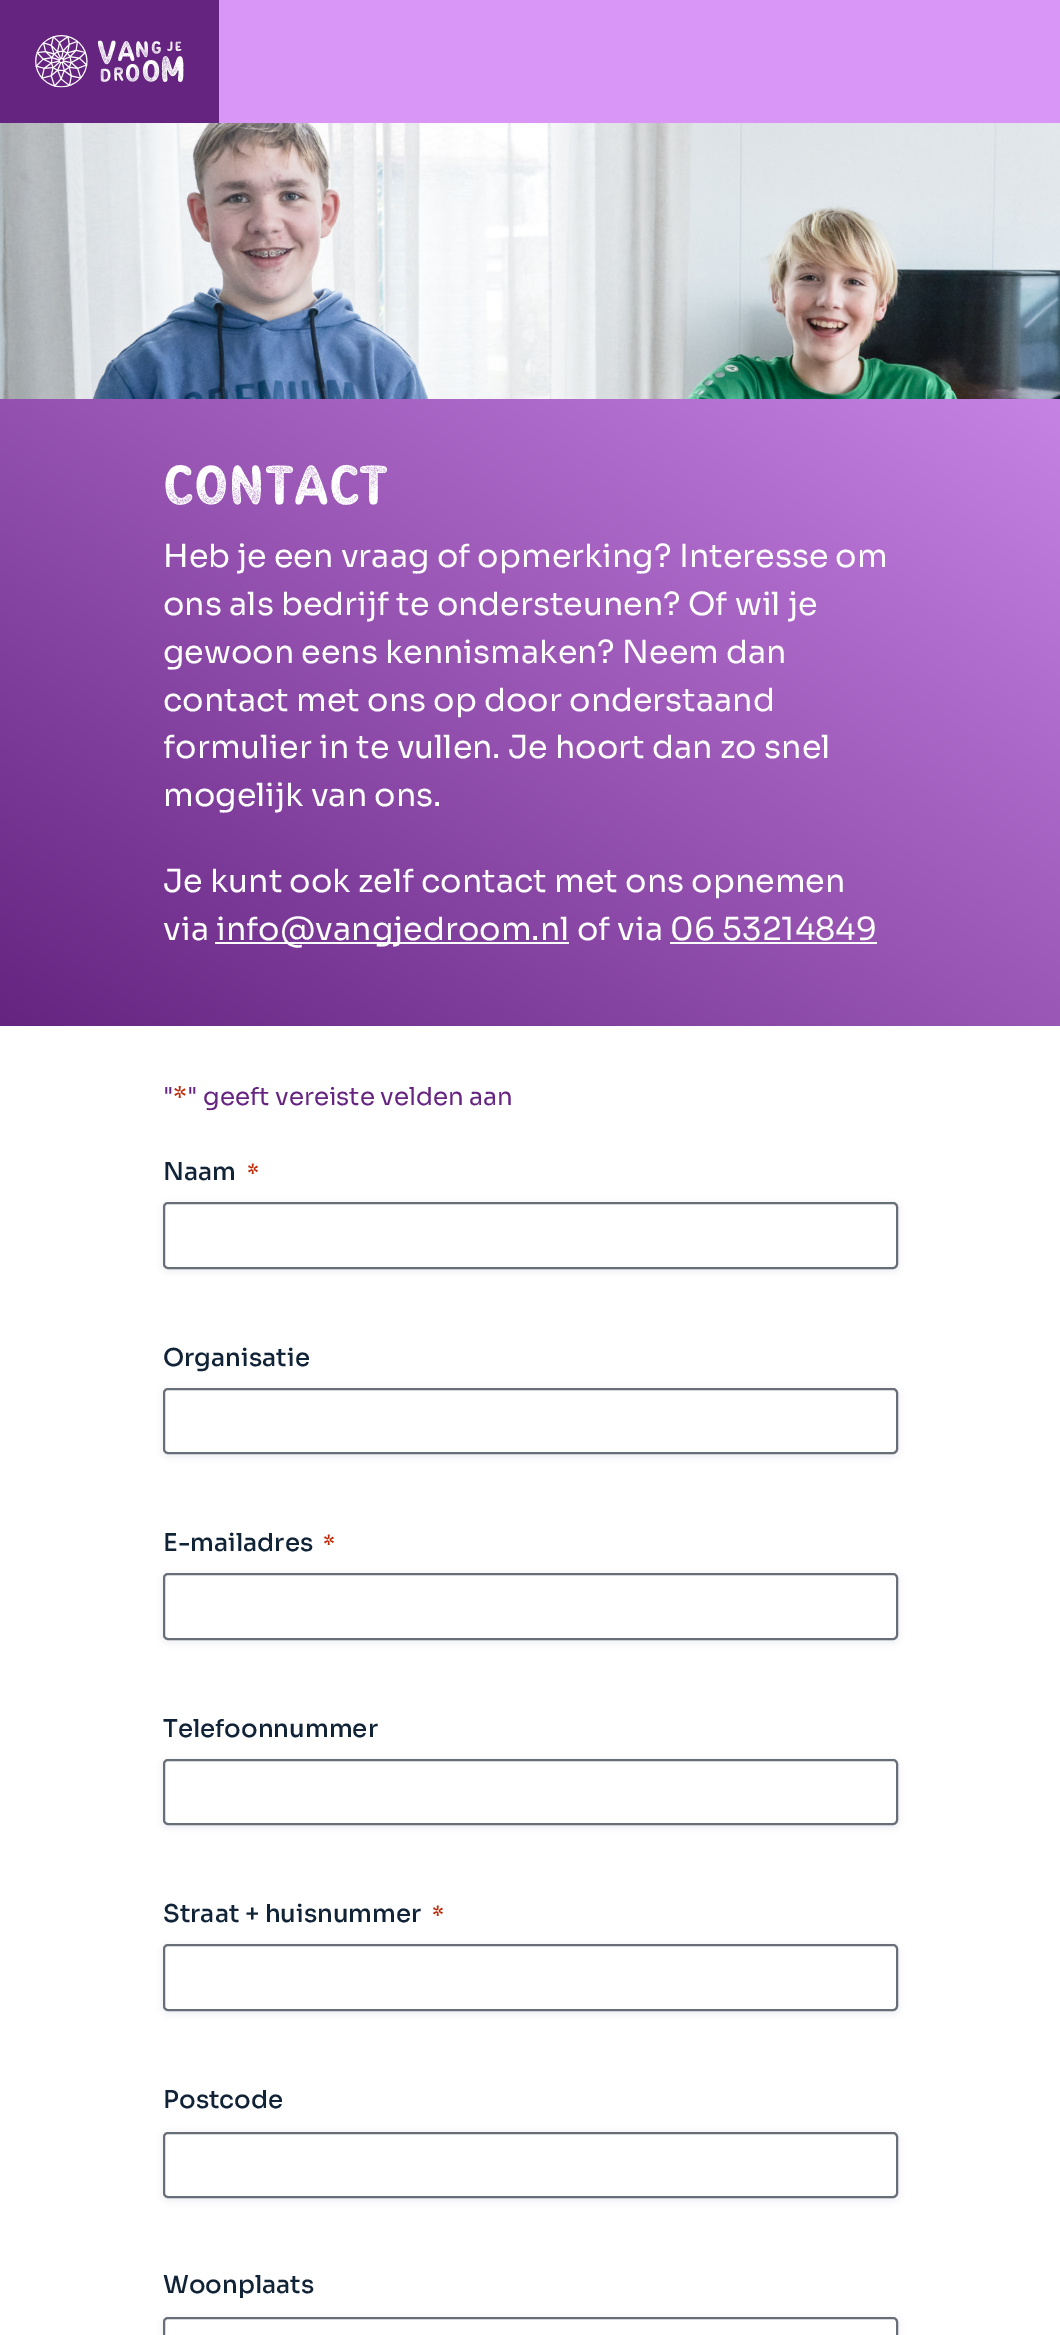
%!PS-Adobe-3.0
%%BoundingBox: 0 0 1060 2335
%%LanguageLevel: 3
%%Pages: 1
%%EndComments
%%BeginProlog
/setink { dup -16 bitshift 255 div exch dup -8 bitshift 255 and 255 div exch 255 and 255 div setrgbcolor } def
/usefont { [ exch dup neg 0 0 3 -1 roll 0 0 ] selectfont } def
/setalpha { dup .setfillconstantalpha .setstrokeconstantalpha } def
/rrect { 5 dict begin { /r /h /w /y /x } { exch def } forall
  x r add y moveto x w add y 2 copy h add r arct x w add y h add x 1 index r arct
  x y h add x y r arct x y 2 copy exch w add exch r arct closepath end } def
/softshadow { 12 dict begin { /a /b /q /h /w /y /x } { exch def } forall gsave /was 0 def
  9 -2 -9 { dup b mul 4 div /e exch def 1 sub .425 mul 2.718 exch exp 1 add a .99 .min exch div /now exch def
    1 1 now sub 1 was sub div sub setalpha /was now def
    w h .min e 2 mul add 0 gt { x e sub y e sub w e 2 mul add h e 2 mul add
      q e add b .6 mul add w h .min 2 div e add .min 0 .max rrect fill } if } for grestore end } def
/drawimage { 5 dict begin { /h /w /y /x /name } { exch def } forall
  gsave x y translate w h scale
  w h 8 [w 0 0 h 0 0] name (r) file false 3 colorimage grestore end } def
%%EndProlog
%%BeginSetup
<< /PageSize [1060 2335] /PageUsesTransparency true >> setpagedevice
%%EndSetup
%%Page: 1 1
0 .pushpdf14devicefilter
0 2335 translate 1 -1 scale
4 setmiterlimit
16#FFFFFF setink
0 0 1060 2335 rectfill
16#D996F7 setink
219 0 841 123 rectfill
16#662481 setink
0 0 219 123 rectfill
(img1.raw) 35 35 149 53 drawimage
gsave 0 399 moveto 1060 399 lineto 1060 1026 lineto 0 1026 lineto closepath clip newpath
<< /ShadingType 2 /ColorSpace /DeviceRGB /Coords [155 1130 905 18] /Extend [true true] /Function << /FunctionType 2 /Domain [0 1] /C0 [0.4 0.141 0.506] /C1 [0.859 0.592 0.973] /N 1 >> >> shfill grestore
(img2.raw) 0 123 1060 276 drawimage
/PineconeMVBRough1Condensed-Regular 53 usefont
16#FFFFFF setink
163 504 moveto (Contact) show
/Sora-Regular 31.8 usefont
[
    [(Heb je een vraag of opmerking? Interesse om) 163 567]
    [(ons als bedrijf te ondersteunen? Of wil je) 163 615]
    [(gewoon eens kennismaken? Neem dan) 163 663]
    [(contact met ons op door onderstaand) 163 711]
    [(formulier in te vullen. Je hoort dan zo snel) 163 758]
    [(mogelijk van ons.) 163 806]
    [(Je kunt ook zelf contact met ons opnemen) 163 892]
    [(via) 163 940]
] { aload pop moveto show } forall
215 942 354 2 rectfill
216 940 moveto (info@vangjedroom.nl of via 06 53214849) show
670 942 207 2 rectfill
/Sora-Regular 24.5 usefont
16#662481 setink
163 1105 moveto (") show
16#C02B0A setink
173 1105 moveto (*) show
16#662481 setink
187 1105 moveto (" geeft vereiste velden aan) show
/Sora-Medium 24.5 usefont
16#112337 setink
163 1180 moveto (Naam) show
/Sora-Medium 21 usefont
16#C02B0A setink
247 1180 moveto (*) show
16#121961 setink
163 1204 735 67 5 3.5 0.08 softshadow
16#FFFFFF setink
164 1203 733 65 4 rrect gsave fill grestore
16#686E77 setink
2 setlinewidth
stroke
/Sora-Medium 24.5 usefont
16#112337 setink
163 1366 moveto (Organisatie) show
16#121961 setink
163 1390 735 66 5 3.5 0.08 softshadow
16#FFFFFF setink
164 1389 733 64 4 rrect gsave fill grestore
16#686E77 setink
stroke
16#112337 setink
163 1551 moveto (E-mailadres) show
/Sora-Medium 21 usefont
16#C02B0A setink
323 1551 moveto (*) show
16#121961 setink
163 1575 735 67 5 3.5 0.08 softshadow
16#FFFFFF setink
164 1574 733 65 4 rrect gsave fill grestore
16#686E77 setink
stroke
/Sora-Medium 24.5 usefont
16#112337 setink
163 1737 moveto (Telefoonnummer) show
16#121961 setink
163 1761 735 66 5 3.5 0.08 softshadow
16#FFFFFF setink
164 1760 733 64 4 rrect gsave fill grestore
16#686E77 setink
stroke
16#112337 setink
163 1922 moveto (Straat + huisnummer) show
/Sora-Medium 21 usefont
16#C02B0A setink
432 1922 moveto (*) show
16#121961 setink
163 1946 735 67 5 3.5 0.08 softshadow
16#FFFFFF setink
164 1945 733 65 4 rrect gsave fill grestore
16#686E77 setink
stroke
/Sora-Medium 24.5 usefont
16#112337 setink
163 2108 moveto (Postcode) show
16#121961 setink
163 2133 735 67 5 3.5 0.08 softshadow
16#FFFFFF setink
164 2133 733 64 4 rrect gsave fill grestore
16#686E77 setink
stroke
16#112337 setink
163 2293 moveto (Woonplaats) show
16#121961 setink
163 2319 735 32 5 3.5 0.08 softshadow
16#FFFFFF setink
164 2318 733 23 4 rrect gsave fill grestore
16#686E77 setink
stroke
.poppdf14devicefilter showpage
%%EOF
